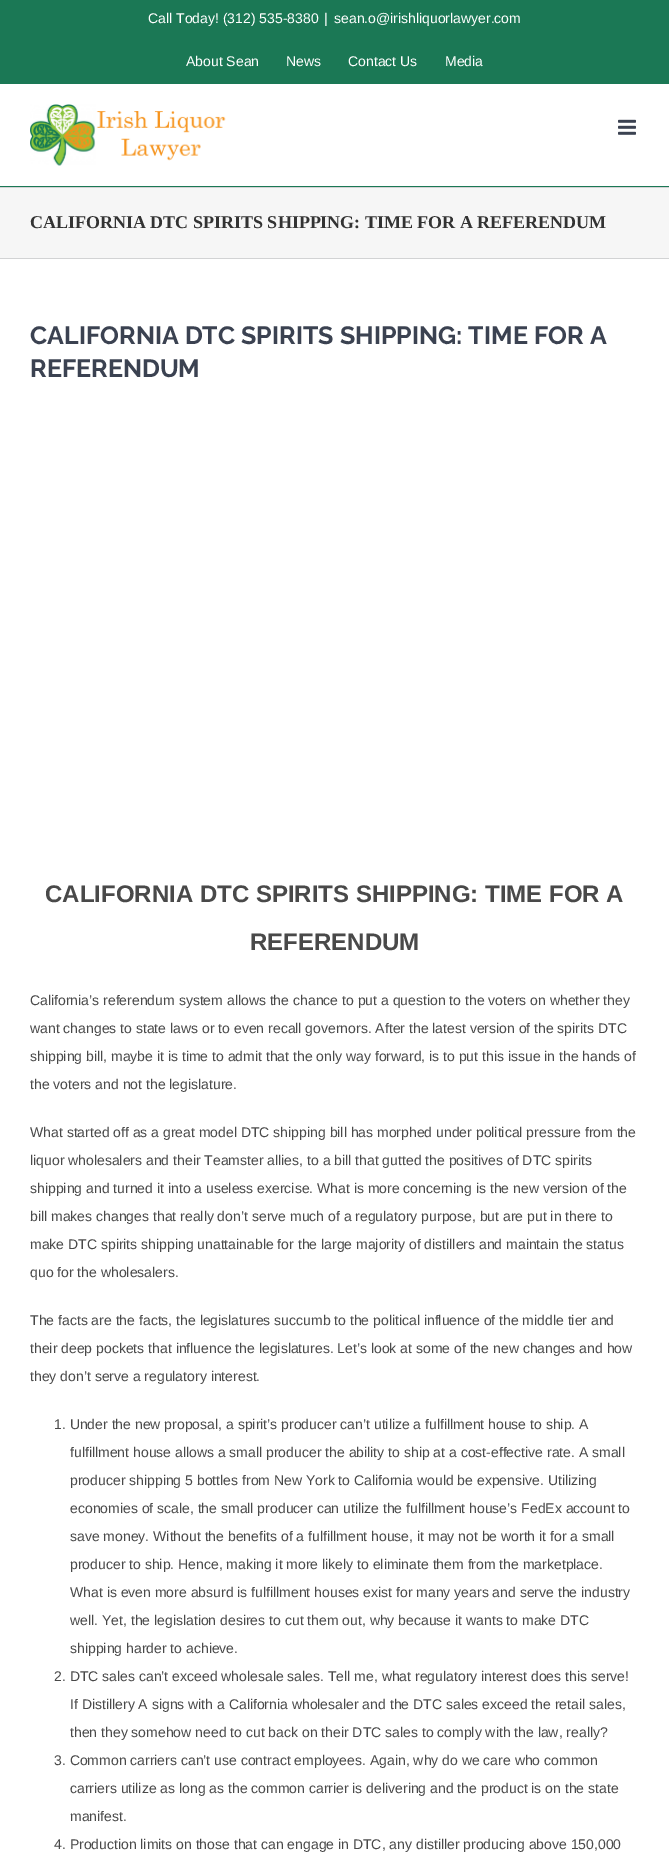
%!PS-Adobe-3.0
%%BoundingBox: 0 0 669 1854
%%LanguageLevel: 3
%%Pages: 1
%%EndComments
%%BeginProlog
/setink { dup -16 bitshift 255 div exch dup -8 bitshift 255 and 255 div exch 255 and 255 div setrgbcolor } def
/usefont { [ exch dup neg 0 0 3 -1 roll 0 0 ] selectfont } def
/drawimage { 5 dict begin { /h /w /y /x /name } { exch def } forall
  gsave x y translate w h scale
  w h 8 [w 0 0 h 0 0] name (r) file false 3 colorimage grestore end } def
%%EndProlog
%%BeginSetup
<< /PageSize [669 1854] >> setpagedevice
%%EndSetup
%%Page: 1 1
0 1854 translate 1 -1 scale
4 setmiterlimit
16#FFFFFF setink
0 0 669 1854 rectfill
16#1B7855 setink
0 0 669 84 rectfill
/LiberationSans-Regular 14 usefont
16#FFFFFF setink
[
    [(Call Today! \(312\) 535-8380) 148 23]
    [(|) 324 23]
    [(sean.o@irishliquorlawyer.com) 334 23]
    [(About Sean) 186 66]
    [(News) 286 66]
    [(Contact Us) 348 66]
    [(Media) 445 66]
] { aload pop moveto show } forall
16#1B7855 setink
0 186 669 1 rectfill
(img1.raw) 30 104 196 62 drawimage
(img2.raw) 618 119 18 16 drawimage
[
    [0 188 669 70 16#F6F6F6]
    [0 187 669 1 16#D2D3D4]
    [0 258 669 1 16#D2D3D4]
] { aload pop setink rectfill } forall
/LiberationSerif-Bold 18 usefont
16#333333 setink
30 228 moveto (CALIFORNIA DTC SPIRITS SHIPPING: TIME FOR A REFERENDUM) show
/Raleway-Thin 25 usefont
16#3B4251 setink
30 344 moveto (CALIFORNIA DTC SPIRITS SHIPPING: TIME FOR A) show
30 377 moveto (REFERENDUM) show
/LiberationSans-Bold 24 usefont
16#494949 setink
45 902 moveto (CALIFORNIA DTC SPIRITS SHIPPING: TIME FOR A) show
250 950 moveto (REFERENDUM) show
/LiberationSans-Regular 14 usefont
[
    [(California’s referendum system allows the chance to put a question to the voters on whether they) 30 1005]
    [(want changes to state laws or to even recall governors. After the latest version of the spirits DTC) 30 1033]
    [(shipping bill, maybe it is time to admit that the only way forward, is to put this issue in the hands of) 30 1061]
    [(the voters and not the legislature.) 30 1089]
    [(What started off as a great model DTC shipping bill has morphed under political pressure from the) 30 1137]
    [(liquor wholesalers and their Teamster allies, to a bill that gutted the positives of DTC spirits) 30 1165]
    [(shipping and turned it into a useless exercise. What is more concerning is the new version of the) 30 1193]
    [(bill makes changes that really don’t serve much of a regulatory purpose, but are put in there to) 30 1221]
    [(make DTC spirits shipping unattainable for the large majority of distillers and maintain the status) 30 1249]
    [(quo for the wholesalers.) 30 1277]
    [(The facts are the facts, the legislatures succumb to the political influence of the middle tier and) 30 1325]
    [(their deep pockets that influence the legislatures. Let’s look at some of the new changes and how) 30 1353]
    [(they don’t serve a regulatory interest.) 30 1381]
    [(1. Under the new proposal, a spirit’s producer can’t utilize a fulfillment house to ship. A) 54 1429]
    [(fulfillment house allows a small producer the ability to ship at a cost-effective rate. A small) 70 1457]
    [(producer shipping 5 bottles from New York to California would be expensive. Utilizing) 70 1485]
    [(economies of scale, the small producer can utilize the fulfillment house’s FedEx account to) 70 1513]
    [(save money. Without the benefits of a fulfillment house, it may not be worth it for a small) 70 1541]
    [(producer to ship. Hence, making it more likely to eliminate them from the marketplace.) 70 1569]
    [(What is even more absurd is fulfillment houses exist for many years and serve the industry) 70 1597]
    [(well. Yet, the legislation desires to cut them out, why because it wants to make DTC) 70 1625]
    [(shipping harder to achieve.) 70 1653]
    [(2. DTC sales can’t exceed wholesale sales. Tell me, what regulatory interest does this serve!) 54 1681]
    [(If Distillery A signs with a California wholesaler and the DTC sales exceed the retail sales,) 70 1709]
    [(then they somehow need to cut back on their DTC sales to comply with the law, really?) 70 1737]
    [(3. Common carriers can’t use contract employees. Again, why do we care who common) 54 1765]
    [(carriers utilize as long as the common carrier is delivering and the product is on the state) 70 1793]
    [(manifest.) 70 1821]
    [(4. Production limits on those that can engage in DTC, any distiller producing above 150,000) 54 1849]
] { aload pop moveto show } forall
showpage
%%EOF
